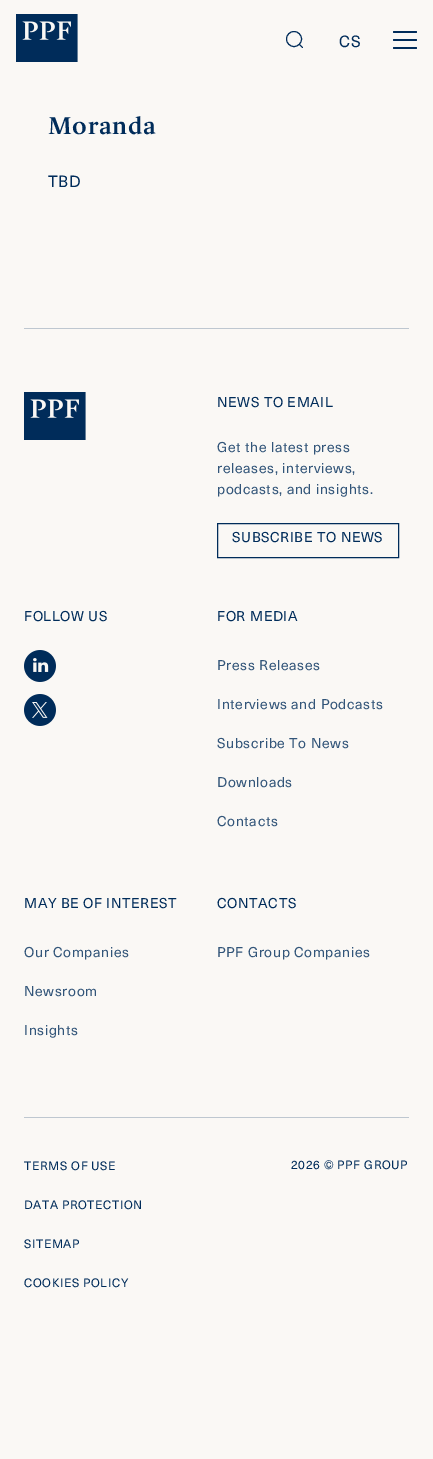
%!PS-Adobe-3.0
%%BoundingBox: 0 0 433 1459
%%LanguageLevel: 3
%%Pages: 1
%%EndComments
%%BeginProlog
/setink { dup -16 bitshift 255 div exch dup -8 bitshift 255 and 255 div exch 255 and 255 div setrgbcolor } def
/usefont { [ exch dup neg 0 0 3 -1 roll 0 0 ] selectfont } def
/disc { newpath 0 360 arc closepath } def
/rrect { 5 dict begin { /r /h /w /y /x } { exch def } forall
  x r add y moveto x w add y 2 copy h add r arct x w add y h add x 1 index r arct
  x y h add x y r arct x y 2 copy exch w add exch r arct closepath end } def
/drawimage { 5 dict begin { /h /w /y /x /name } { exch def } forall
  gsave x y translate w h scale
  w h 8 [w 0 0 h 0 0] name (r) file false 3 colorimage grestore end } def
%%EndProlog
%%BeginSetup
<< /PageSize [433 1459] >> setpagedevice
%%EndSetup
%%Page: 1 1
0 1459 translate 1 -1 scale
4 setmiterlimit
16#FAF8F5 setink
0 0 433 1459 rectfill
(img1.raw) 16 14 62 48 drawimage
16#002C5A setink
294 39 7.5 disc stroke
1 setlinecap
299.5 44.5 moveto 302.5 47.5 lineto stroke
/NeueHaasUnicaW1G-Regular 16 usefont
339 47 moveto 0.6 0 (CS) ashow
393 31 24 2 1 rrect fill
393 39 24 2 1 rrect fill
393 47 24 2 1 rrect fill
/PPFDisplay-Regular 24 usefont
48 134 moveto 0.6 0 (Moranda) ashow
/NeueHaasUnicaW1G-Regular 16 usefont
48 187 moveto 0.6 0 (TBD) ashow
(img1.raw) 24 392 62 48 drawimage
16#BEC7D0 setink
24 328 385 1 rectfill
/NeueHaasUnicaW1G-Regular 14 usefont
16#002C5A setink
217 407 moveto 0.6 0 (NEWS TO EMAIL) ashow
16#325579 setink
217 452 moveto 0.6 0 (Get the latest press) ashow
217 473 moveto 0.6 0 (releases, interviews,) ashow
217 494 moveto 0.6 0 (podcasts, and insights.) ashow
16#002C5A setink
0 setlinecap
217.5 523.5 181 34 rectstroke
232 542 moveto 0.6 0 (SUBSCRIBE TO NEWS) ashow
24 621 moveto 0.6 0 (FOLLOW US) ashow
(img2.raw) 24 650 32 32 drawimage
(img3.raw) 24 694 32 32 drawimage
217 621 moveto 0.6 0 (FOR MEDIA) ashow
16#325579 setink
217 670 moveto 0.6 0 (Press Releases) ashow
217 709 moveto 0.6 0 (Interviews and Podcasts) ashow
217 748 moveto 0.6 0 (Subscribe To News) ashow
217 787 moveto 0.6 0 (Downloads) ashow
217 826 moveto 0.6 0 (Contacts) ashow
16#002C5A setink
24 908 moveto 0.6 0 (MAY BE OF INTEREST) ashow
16#325579 setink
24 957 moveto 0.6 0 (Our Companies) ashow
24 996 moveto 0.6 0 (Newsroom) ashow
24 1035 moveto 0.6 0 (Insights) ashow
16#002C5A setink
217 908 moveto 0.6 0 (CONTACTS) ashow
16#325579 setink
217 957 moveto 0.6 0 (PPF Group Companies) ashow
16#BEC7D0 setink
24 1117 385 1 rectfill
/NeueHaasUnicaW1G-Regular 12 usefont
16#002C5A setink
24 1170 moveto 0.6 0 (TERMS OF USE) ashow
24 1209 moveto 0.6 0 (DATA PROTECTION) ashow
24 1248 moveto 0.6 0 (SITEMAP) ashow
24 1287 moveto 0.6 0 (COOKIES POLICY) ashow
291 1169 moveto 0.6 0 (2026 © PPF GROUP) ashow
showpage
%%EOF
